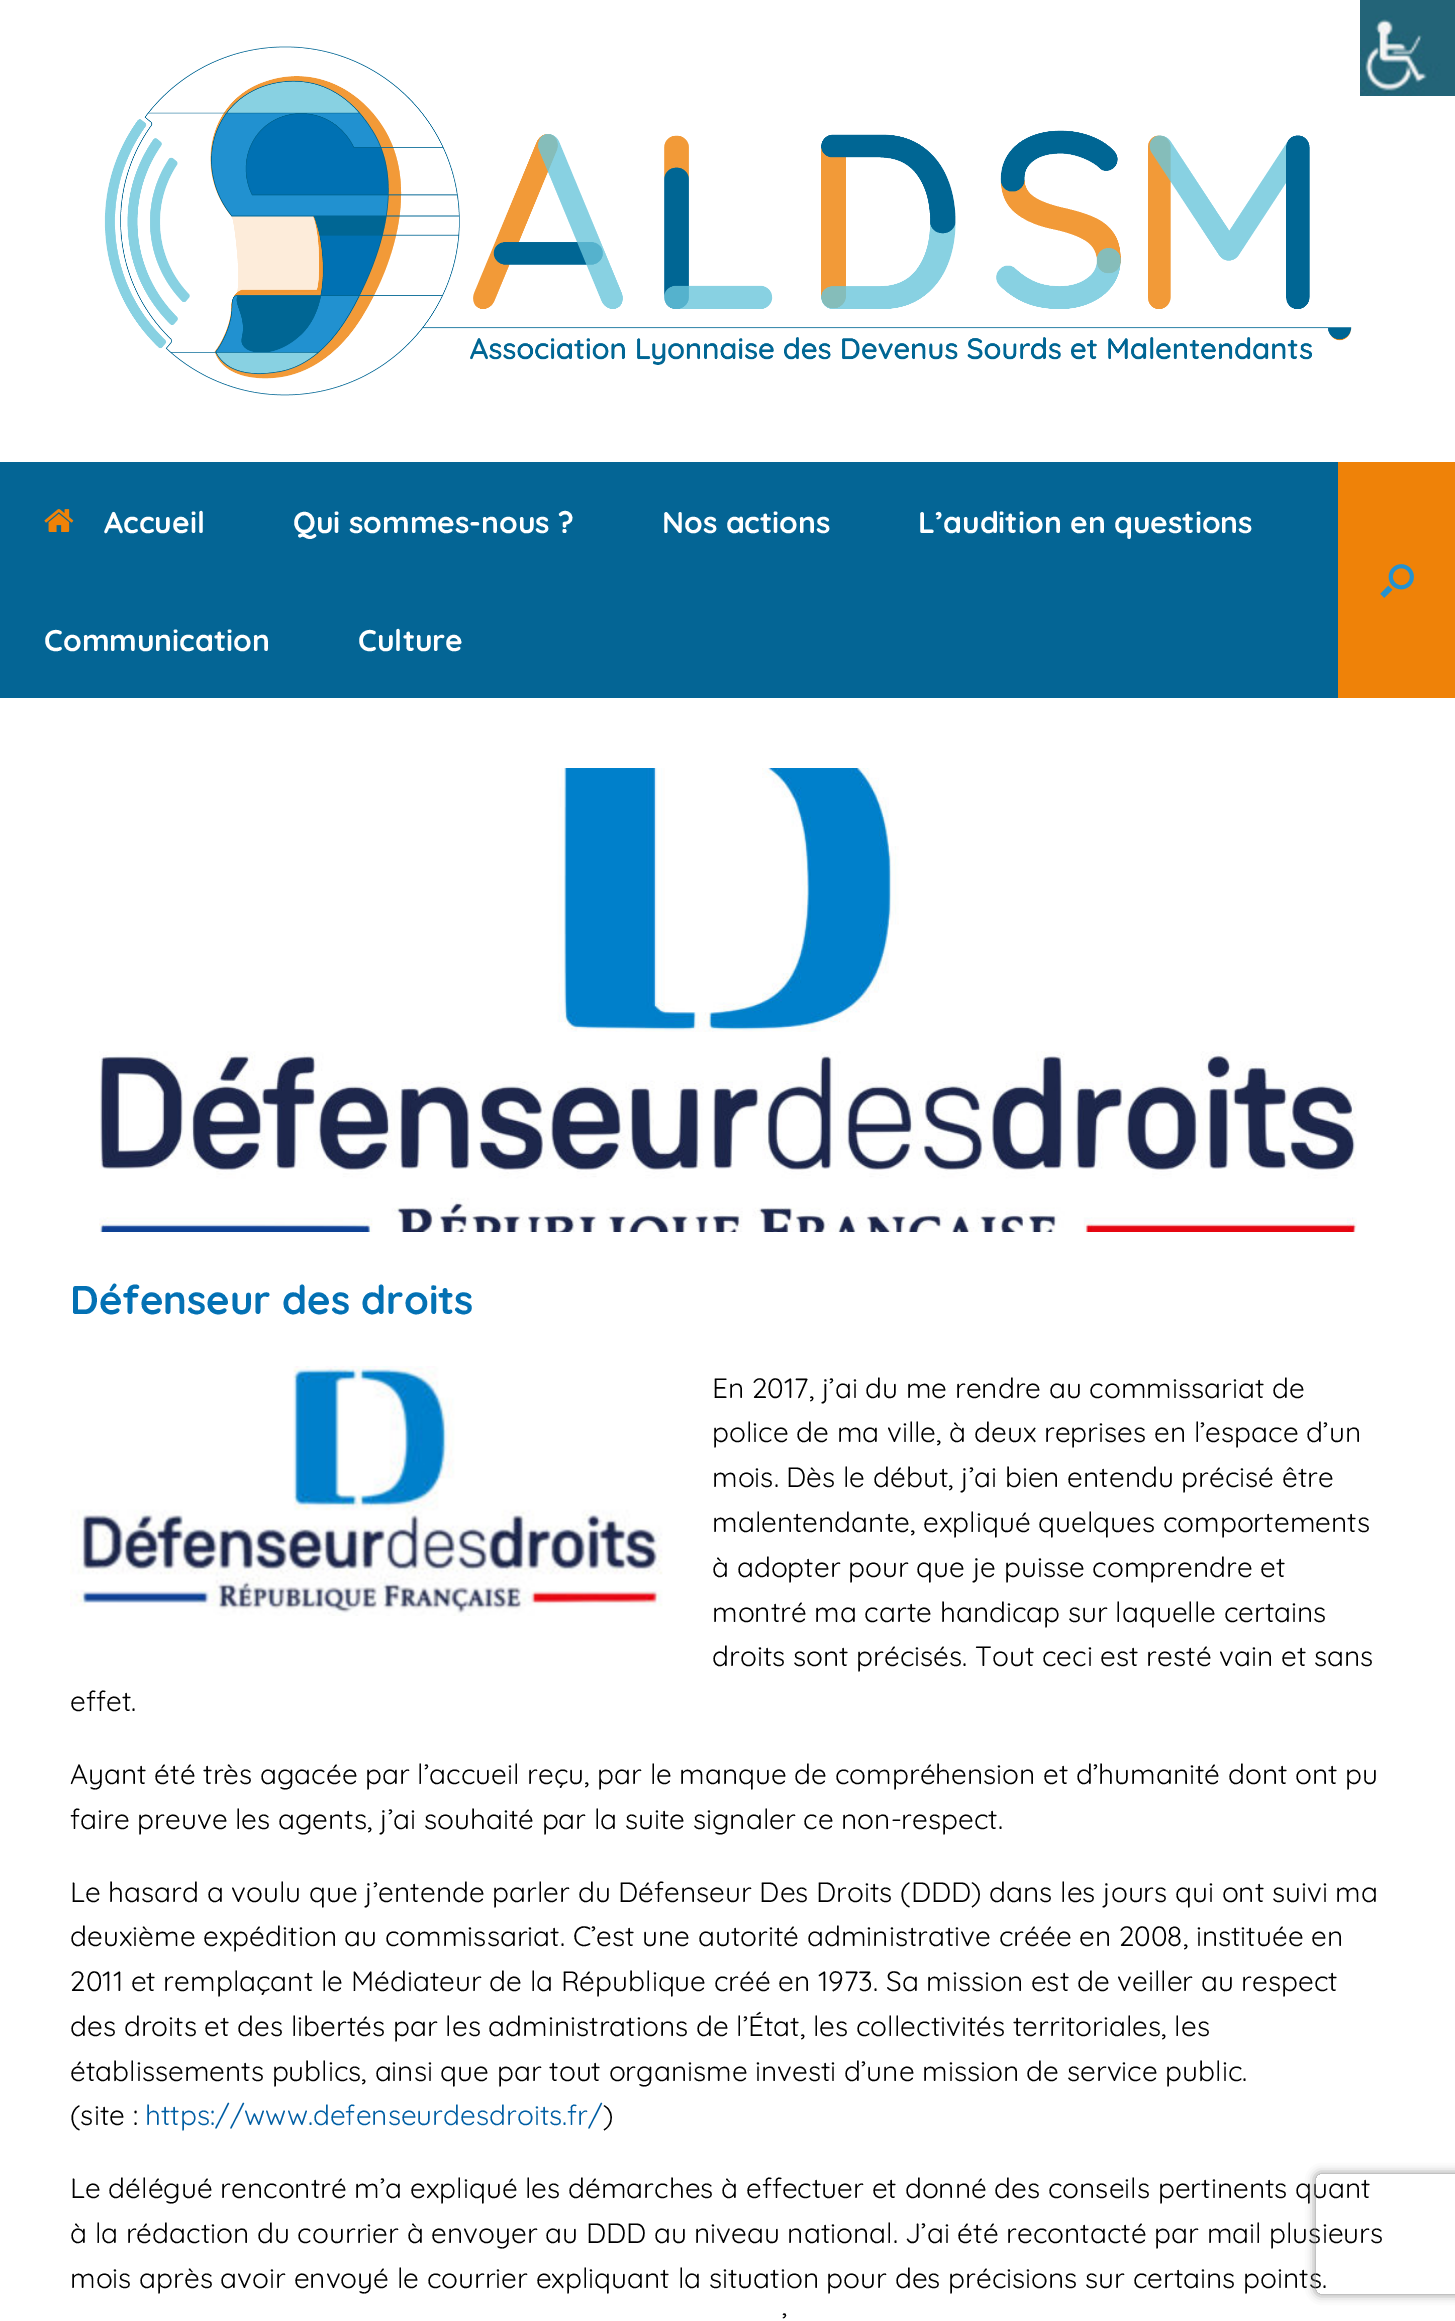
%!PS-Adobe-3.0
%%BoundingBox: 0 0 1455 2321
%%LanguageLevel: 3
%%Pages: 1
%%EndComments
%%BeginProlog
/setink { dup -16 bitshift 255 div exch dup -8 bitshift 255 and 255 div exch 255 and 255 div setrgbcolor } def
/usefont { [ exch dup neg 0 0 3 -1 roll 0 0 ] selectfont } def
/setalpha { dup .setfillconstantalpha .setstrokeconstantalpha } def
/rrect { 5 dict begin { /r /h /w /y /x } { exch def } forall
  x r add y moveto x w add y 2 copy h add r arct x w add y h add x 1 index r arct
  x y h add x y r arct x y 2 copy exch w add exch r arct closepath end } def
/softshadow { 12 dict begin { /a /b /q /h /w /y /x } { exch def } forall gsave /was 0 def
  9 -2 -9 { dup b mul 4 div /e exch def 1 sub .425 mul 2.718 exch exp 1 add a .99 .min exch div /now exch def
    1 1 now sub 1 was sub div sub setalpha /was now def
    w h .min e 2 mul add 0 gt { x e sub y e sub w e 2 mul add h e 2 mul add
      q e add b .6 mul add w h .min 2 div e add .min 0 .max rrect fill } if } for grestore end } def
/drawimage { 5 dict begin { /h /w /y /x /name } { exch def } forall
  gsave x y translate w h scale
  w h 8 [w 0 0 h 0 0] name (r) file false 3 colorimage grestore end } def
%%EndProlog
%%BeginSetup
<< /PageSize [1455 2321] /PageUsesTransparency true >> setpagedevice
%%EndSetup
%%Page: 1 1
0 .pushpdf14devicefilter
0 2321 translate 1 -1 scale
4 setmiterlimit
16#FFFFFF setink
0 0 1455 2321 rectfill
(img1.raw) 1360 0 95 96 drawimage
(img2.raw) 104 46 1248 350 drawimage
16#046595 setink
0 462 1338 236 rectfill
(img3.raw) 44 509 30 23 drawimage
/Quicksand-Bold 30 usefont
16#FFFFFF setink
[
    [(Accueil) 104 533]
    [(Qui sommes-nous ?) 293 533]
    [(Nos actions) 662 533]
    [(L’audition en questions) 918 533]
    [(Communication) 44 651]
    [(Culture) 358 651]
] { aload pop moveto show } forall
16#EF8208 setink
1338 462 117 236 rectfill
(img4.raw) 1380 564 34 34 drawimage
(img5.raw) 99 768 1258 464 drawimage
/Quicksand-Bold 40 usefont
16#0371B4 setink
70 1314 moveto (Défenseur des droits) show
(img6.raw) 70 1366 593 250 drawimage
/Quicksand-Regular 28 usefont
16#000000 setink
[
    [(En 2017, j’ai du me rendre au commissariat de) 712 1398]
    [(police de ma ville, à deux reprises en l’espace d’un) 712 1442]
    [(mois. Dès le début, j’ai bien entendu précisé être) 712 1487]
    [(malentendante, expliqué quelques comportements) 712 1532]
    [(à adopter pour que je puisse comprendre et) 712 1577]
    [(montré ma carte handicap sur laquelle certains) 712 1622]
    [(droits sont précisés. Tout ceci est resté vain et sans) 712 1666]
    [(effet.) 70 1711]
    [(Ayant été très agacée par l’accueil reçu, par le manque de compréhension et d’humanité dont ont pu) 70 1784]
    [(faire preuve les agents, j’ai souhaité par la suite signaler ce non-respect.) 70 1829]
    [(Le hasard a voulu que j’entende parler du Défenseur Des Droits \(DDD\) dans les jours qui ont suivi ma) 70 1902]
    [(deuxième expédition au commissariat. C’est une autorité administrative créée en 2008, instituée en) 70 1946]
    [(2011 et remplaçant le Médiateur de la République créé en 1973. Sa mission est de veiller au respect) 70 1991]
    [(des droits et des libertés par les administrations de l’État, les collectivités territoriales, les) 70 2036]
    [(établissements publics, ainsi que par tout organisme investi d’une mission de service public.) 70 2081]
    [(\(site :) 70 2125]
] { aload pop moveto show } forall
16#005EA4 setink
145 2125 moveto (https://www.defenseurdesdroits.fr/) show
16#000000 setink
[
    [(\)) 603 2125]
    [(Le délégué rencontré m’a expliqué les démarches à effectuer et donné des conseils pertinents quant) 70 2198]
    [(à la rédaction du courrier à envoyer au DDD au niveau national. J’ai été recontacté par mail plusieurs) 70 2243]
    [(mois après avoir envoyé le courrier expliquant la situation pour des précisions sur certains points.) 70 2288]
    [(’) 782 2333]
] { aload pop moveto show } forall
gsave
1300 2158 moveto 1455 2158 lineto 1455 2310 lineto 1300 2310 lineto closepath 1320 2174 moveto 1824 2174 lineto 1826 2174 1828 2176 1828 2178 curveto 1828 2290 lineto 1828 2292 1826 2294 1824 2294 curveto 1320 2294 lineto 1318 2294 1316 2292 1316 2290 curveto 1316 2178 lineto 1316 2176 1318 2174 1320 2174 curveto closepath eoclip newpath
16#808080 setink
1316 2174 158 120 4 5 1 softshadow
grestore
.poppdf14devicefilter showpage
%%EOF
